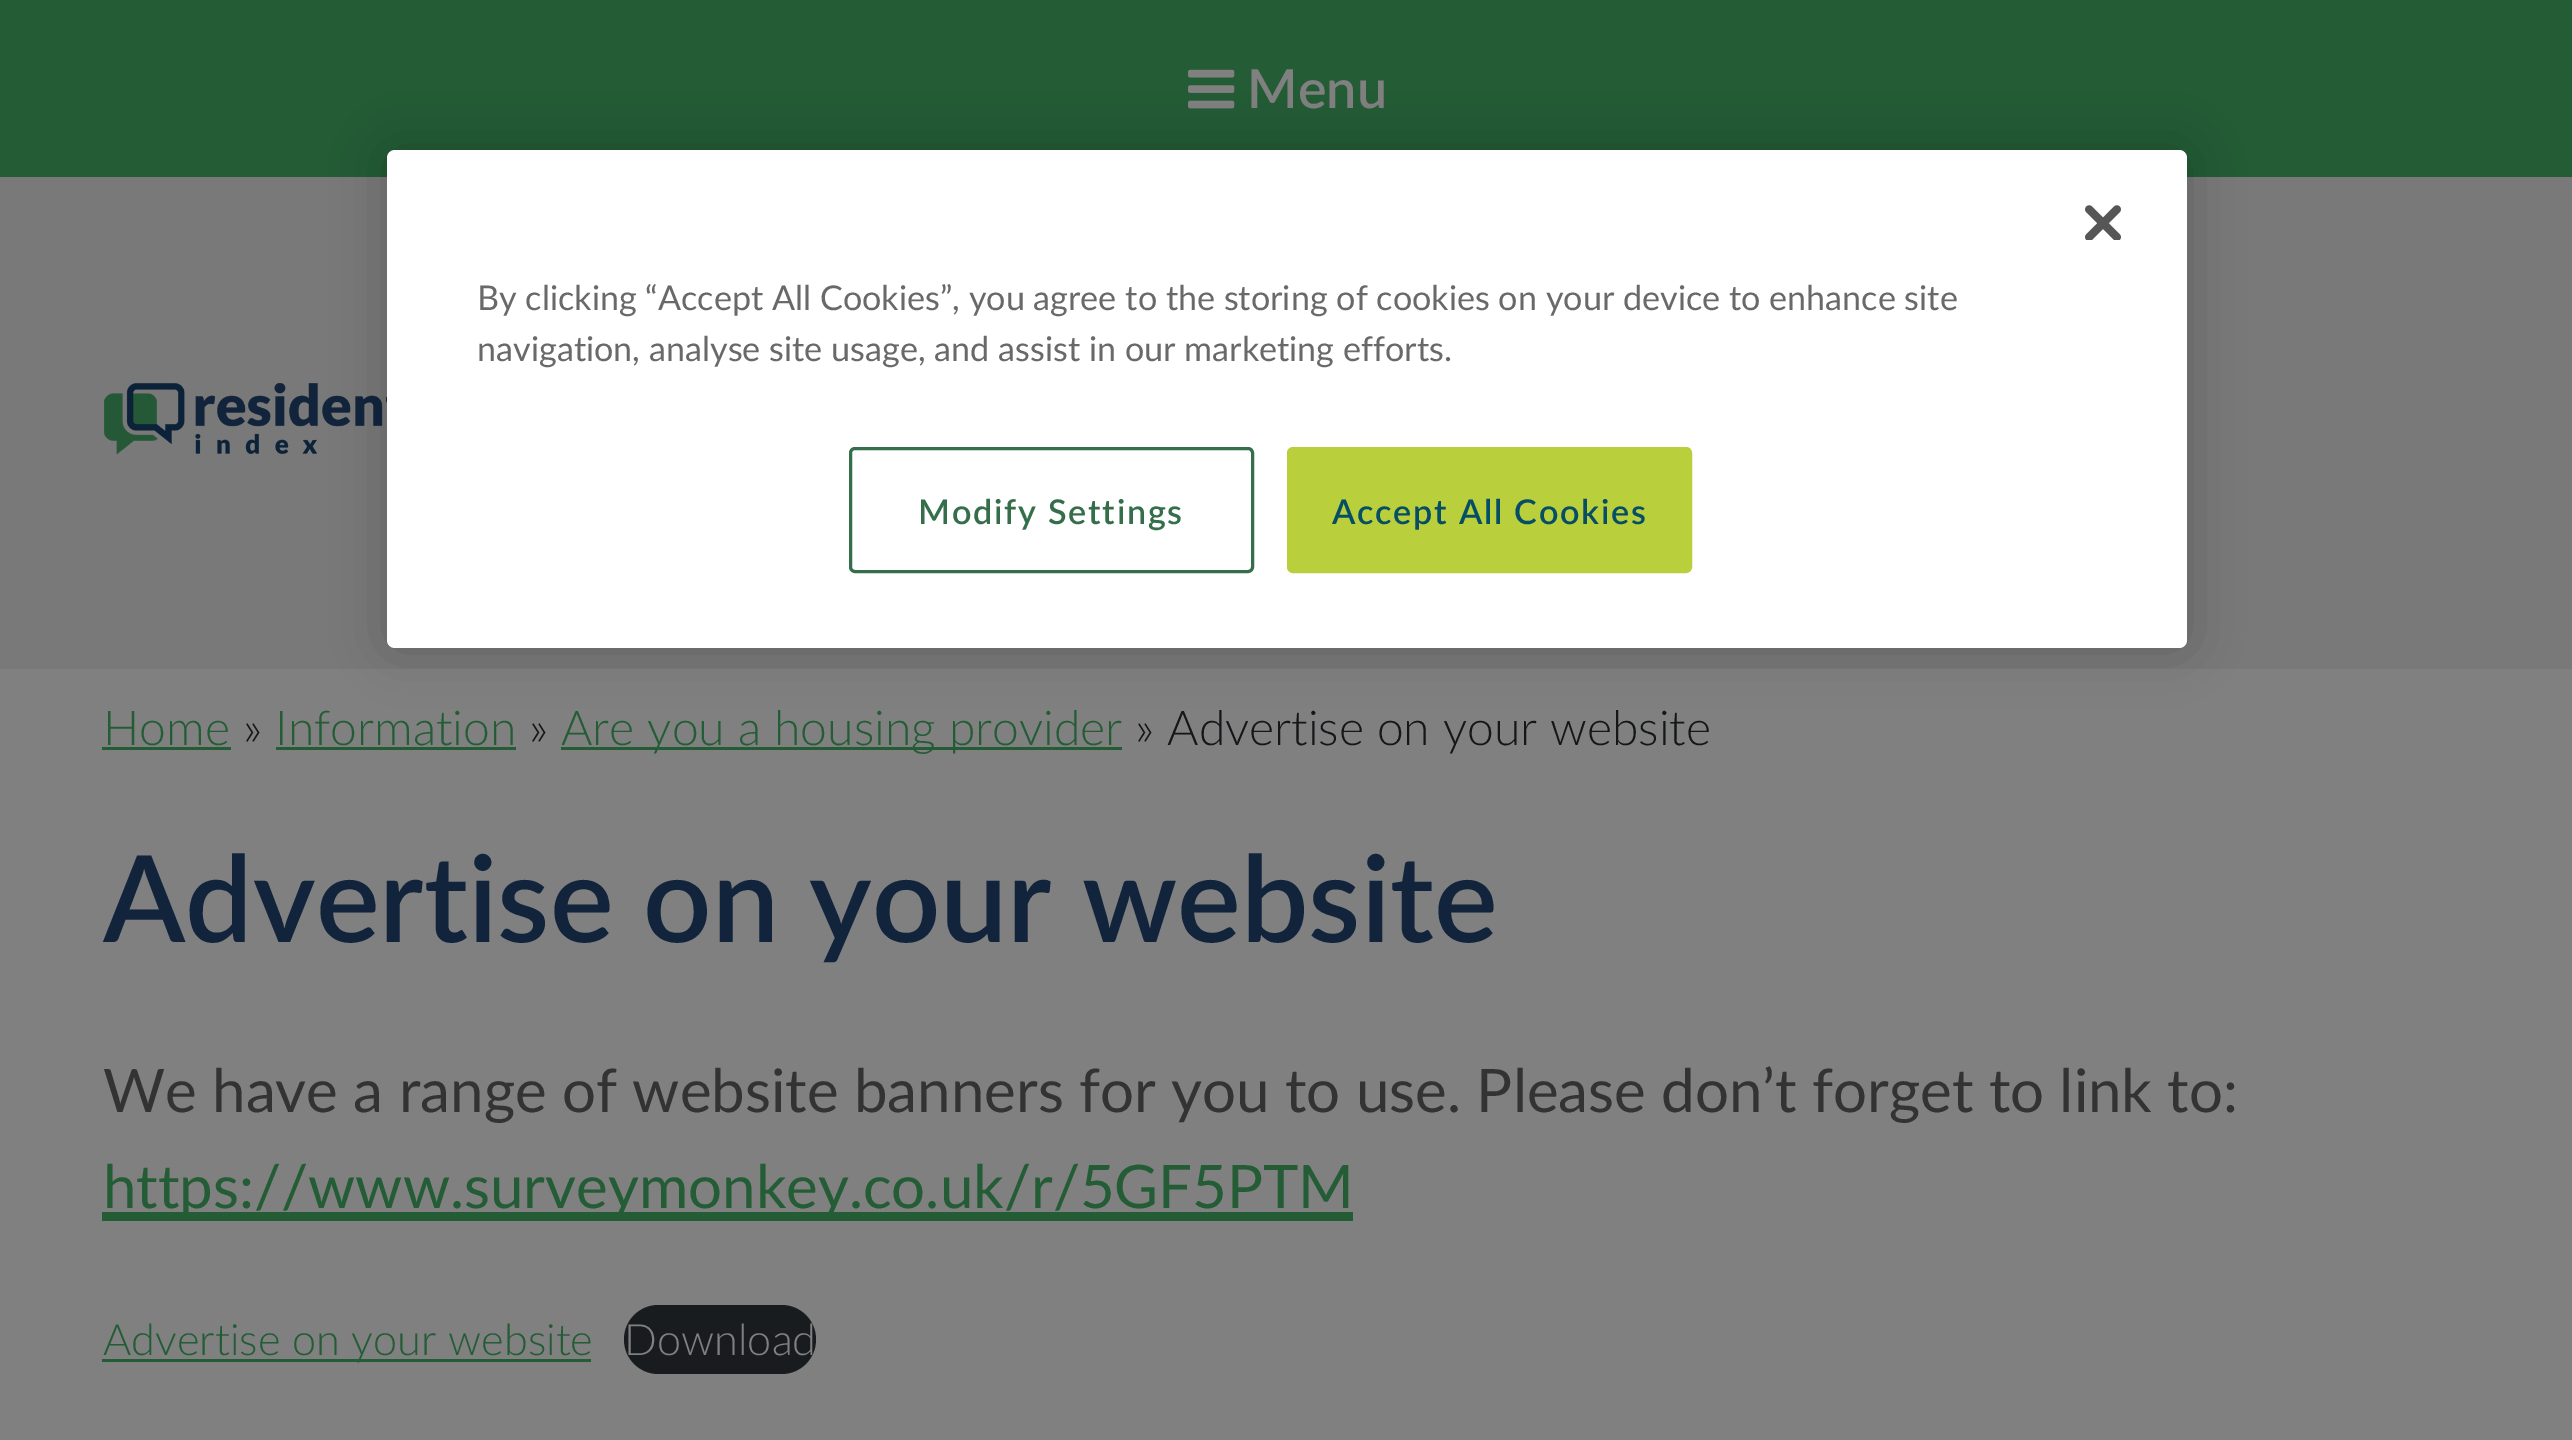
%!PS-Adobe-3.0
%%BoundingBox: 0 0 2572 1440
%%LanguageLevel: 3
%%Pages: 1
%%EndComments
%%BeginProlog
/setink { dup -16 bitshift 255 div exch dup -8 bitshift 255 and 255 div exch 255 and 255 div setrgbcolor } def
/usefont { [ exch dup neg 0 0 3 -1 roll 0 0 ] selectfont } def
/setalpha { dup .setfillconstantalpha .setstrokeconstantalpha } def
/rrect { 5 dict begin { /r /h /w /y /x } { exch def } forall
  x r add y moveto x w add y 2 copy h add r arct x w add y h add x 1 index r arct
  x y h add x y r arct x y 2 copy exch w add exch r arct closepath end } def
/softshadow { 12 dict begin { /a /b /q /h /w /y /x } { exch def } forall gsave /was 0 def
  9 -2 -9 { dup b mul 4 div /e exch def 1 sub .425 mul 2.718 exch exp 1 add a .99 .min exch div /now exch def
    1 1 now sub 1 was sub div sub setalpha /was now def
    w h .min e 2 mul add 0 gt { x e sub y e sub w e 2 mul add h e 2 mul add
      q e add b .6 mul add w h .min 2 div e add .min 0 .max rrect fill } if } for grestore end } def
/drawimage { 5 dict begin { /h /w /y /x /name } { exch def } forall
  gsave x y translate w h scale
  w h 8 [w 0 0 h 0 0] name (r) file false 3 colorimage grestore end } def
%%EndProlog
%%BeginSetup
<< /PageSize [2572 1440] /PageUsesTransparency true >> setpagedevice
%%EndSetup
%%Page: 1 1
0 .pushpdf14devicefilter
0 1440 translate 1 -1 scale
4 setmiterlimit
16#808080 setink
0 0 2572 1440 rectfill
16#797979 setink
0 177 2572 492 rectfill
16#235C35 setink
0 0 2572 177 rectfill
(img1.raw) 1188 69 47 40 drawimage
/Lato-SemiBold 54 usefont
16#808080 setink
1247 108 moveto (Menu) show
(img2.raw) 104 383 283 72 drawimage
16#000000 setink
387 150 1800 498 8 27 0.2 softshadow
16#FFFFFF setink
387 150 1800 498 8 rrect fill
(img3.raw) 2085 205 36 35 drawimage
/Lato-Regular 34.15 usefont
16#696969 setink
477 310 moveto (By clicking “Accept All Cookies”, you agree to the storing of cookies on your device to enhance site) show
477 361 moveto (navigation, analyse site usage, and assist in our marketing efforts.) show
16#346E4A setink
3 setlinewidth
850.5 448.5 402 123 4.5 rrect stroke
/Lato-SemiBold 34.15 usefont
918 524 moveto 1.75 0 (Modify Settings) ashow
16#B9CF3B setink
1288.5 448.5 402 123 4.5 rrect gsave fill grestore
stroke
16#054E66 setink
1332 524 moveto 1.75 0 (Accept All Cookies) ashow
/Lato-Light 48 usefont
16#235C35 setink
103 745 moveto (Home) show
102 747 129 3 rectfill
16#141618 setink
243 745 moveto (») show
16#235C35 setink
275 745 moveto (Information) show
276 747 240 3 rectfill
16#141618 setink
529 745 moveto (») show
16#235C35 setink
561 747 561 3 rectfill
561 745 moveto (Are you a housing provider) show
16#141618 setink
1135 745 moveto (» Advertise on your website) show
/Lato-SemiBold 120 usefont
16#11243C setink
103 942 moveto (Advertise on your website) show
/Lato-Regular 60 usefont
16#333333 setink
103 1112 moveto (We have a range of website banners for you to use. Please don’t forget to link to:) show
16#235C35 setink
102 1212 1251 9 rectfill
103 1208 moveto (https://www.surveymonkey.co.uk/r/5GF5PTM) show
102 1359 489 3 rectfill
/Lato-Light 43.25 usefont
103 1355 moveto (Advertise on your website) show
16#191C1E setink
624 1305 192 69 34.5 rrect fill
16#808080 setink
624 1355 moveto (Download) show
.poppdf14devicefilter showpage
%%EOF
